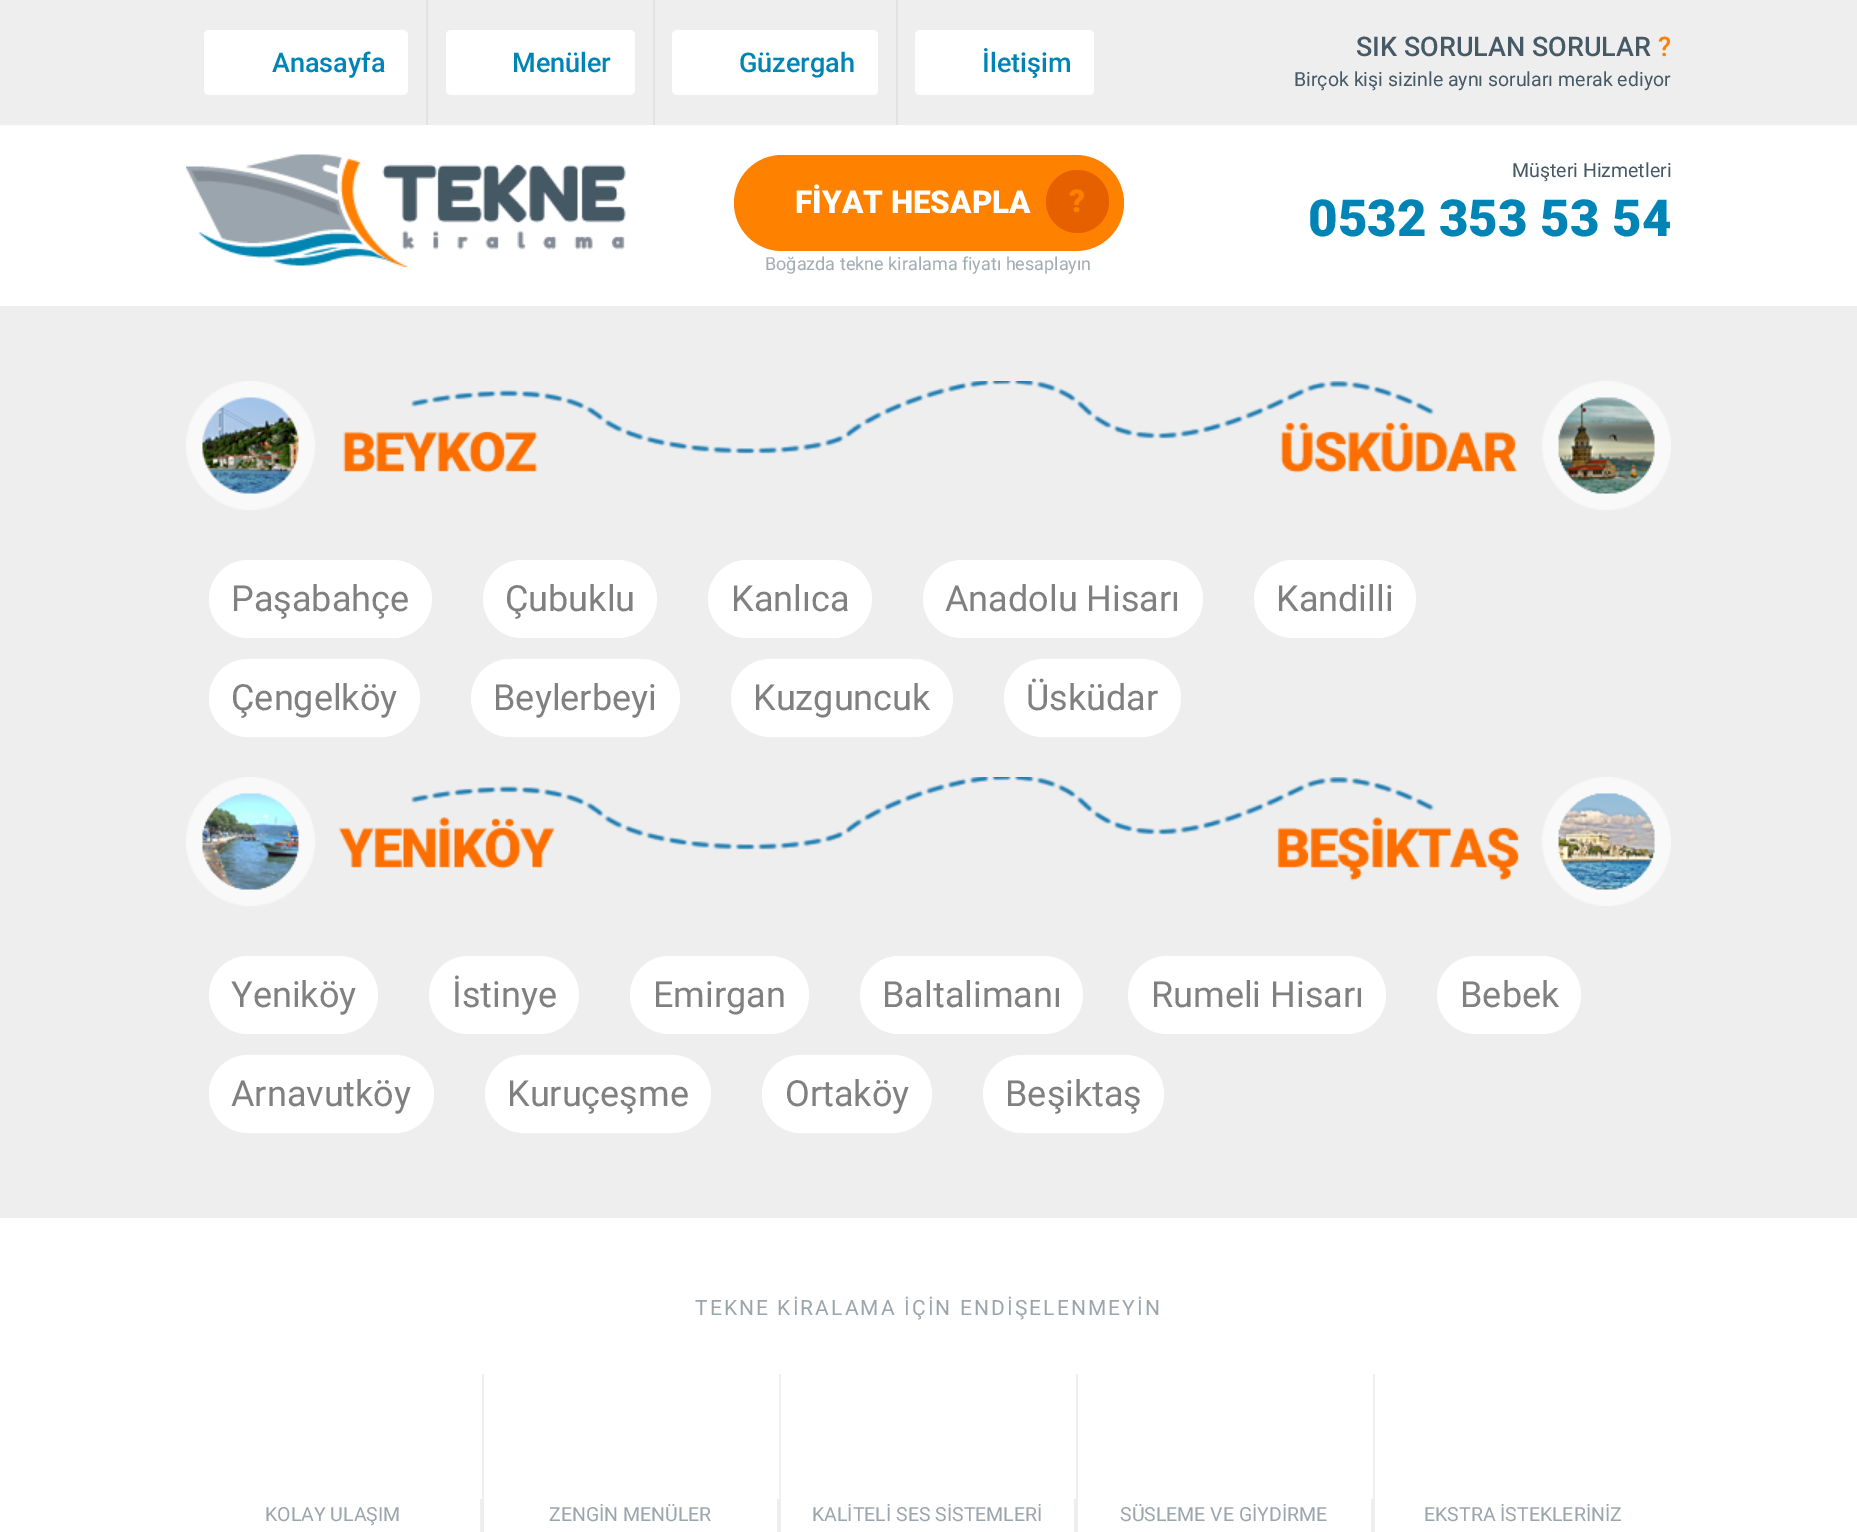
%!PS-Adobe-3.0
%%BoundingBox: 0 0 1857 1532
%%LanguageLevel: 3
%%Pages: 1
%%EndComments
%%BeginProlog
/setink { dup -16 bitshift 255 div exch dup -8 bitshift 255 and 255 div exch 255 and 255 div setrgbcolor } def
/usefont { [ exch dup neg 0 0 3 -1 roll 0 0 ] selectfont } def
/disc { newpath 0 360 arc closepath } def
/rrect { 5 dict begin { /r /h /w /y /x } { exch def } forall
  x r add y moveto x w add y 2 copy h add r arct x w add y h add x 1 index r arct
  x y h add x y r arct x y 2 copy exch w add exch r arct closepath end } def
/drawimage { 5 dict begin { /h /w /y /x /name } { exch def } forall
  gsave x y translate w h scale
  w h 8 [w 0 0 h 0 0] name (r) file false 3 colorimage grestore end } def
%%EndProlog
%%BeginSetup
<< /PageSize [1857 1532] >> setpagedevice
%%EndSetup
%%Page: 1 1
0 1532 translate 1 -1 scale
4 setmiterlimit
16#FFFFFF setink
0 0 1857 1532 rectfill
16#EEEEEE setink
0 0 1857 125 rectfill
16#E2E2E2 setink
426 0 2 125 rectfill
16#FFFFFF setink
204 30 204 65 5 rrect fill
/Roboto-Medium 27 usefont
16#0084B6 setink
272 72 moveto (Anasayfa) show
16#E2E2E2 setink
653 0 2 125 rectfill
16#FFFFFF setink
446 30 189 65 5 rrect fill
16#0084B6 setink
512 72 moveto (Menüler) show
16#E2E2E2 setink
896 0 2 125 rectfill
16#FFFFFF setink
672 30 206 65 5 rrect fill
16#0084B6 setink
739 72 moveto (Güzergah) show
16#FFFFFF setink
915 30 179 65 5 rrect fill
16#0084B6 setink
982 72 moveto (İletişim) show
16#455966 setink
1356 56 moveto (SIK SORULAN SORULAR) show
16#FF8000 setink
1658 56 moveto (?) show
/Roboto-Regular 19.5 usefont
16#455966 setink
1294 86 moveto (Birçok kişi sizinle aynı soruları merak ediyor) show
(img1.raw) 186 154 440 113 drawimage
16#FF8100 setink
734 155 390 96 48 rrect fill
/Roboto-Black 31.5 usefont
16#FFFFFF setink
795 213 moveto (FİYAT HESAPLA) show
16#E76000 setink
1077.5 201.5 31.5 disc fill
16#FF8000 setink
1069 212 moveto (?) show
/Roboto-Regular 18 usefont
16#A2ACB3 setink
765 270 moveto (Boğazda tekne kiralama fiyatı hesaplayın) show
/Roboto-Regular 19.5 usefont
16#455966 setink
1512 177 moveto (Müşteri Hizmetleri) show
/Roboto-Black 51 usefont
16#0084B6 setink
1308 236 moveto (0532 353 53 54) show
16#EEEEEE setink
0 306 1857 912 rectfill
(img2.raw) 186 381 1485 129 drawimage
16#FFFFFF setink
209 560 223 78 39 rrect fill
/Roboto-Regular 36 usefont
16#808080 setink
231 611 moveto (Paşabahçe) show
16#FFFFFF setink
483 560 174 78 39 rrect fill
16#808080 setink
505 611 moveto (Çubuklu) show
16#FFFFFF setink
708 560 164 78 39 rrect fill
16#808080 setink
731 611 moveto (Kanlıca) show
16#FFFFFF setink
923 560 280 78 39 rrect fill
16#808080 setink
945 611 moveto (Anadolu Hisarı) show
16#FFFFFF setink
1254 560 162 78 39 rrect fill
16#808080 setink
1276 611 moveto (Kandilli) show
16#FFFFFF setink
209 659 211 78 39 rrect fill
16#808080 setink
231 710 moveto (Çengelköy) show
16#FFFFFF setink
471 659 209 78 39 rrect fill
16#808080 setink
493 710 moveto (Beylerbeyi) show
16#FFFFFF setink
731 659 222 78 39 rrect fill
16#808080 setink
753 710 moveto (Kuzguncuk) show
16#FFFFFF setink
1004 659 177 78 39 rrect fill
16#808080 setink
1026 710 moveto (Üsküdar) show
(img3.raw) 186 777 1485 129 drawimage
16#FFFFFF setink
209 956 169 78 39 rrect fill
16#808080 setink
231 1007 moveto (Yeniköy) show
16#FFFFFF setink
429 956 150 78 39 rrect fill
16#808080 setink
452 1007 moveto (İstinye) show
16#FFFFFF setink
630 956 179 78 39 rrect fill
16#808080 setink
653 1007 moveto (Emirgan) show
16#FFFFFF setink
860 956 223 78 39 rrect fill
16#808080 setink
882 1007 moveto (Baltalimanı) show
16#FFFFFF setink
1128 956 258 78 39 rrect fill
16#808080 setink
1151 1007 moveto (Rumeli Hisarı) show
16#FFFFFF setink
1437 956 144 78 39 rrect fill
16#808080 setink
1460 1007 moveto (Bebek) show
16#FFFFFF setink
209 1055 225 78 39 rrect fill
16#808080 setink
231 1106 moveto (Arnavutköy) show
16#FFFFFF setink
485 1055 226 78 39 rrect fill
16#808080 setink
507 1106 moveto (Kuruçeşme) show
16#FFFFFF setink
762 1055 170 78 39 rrect fill
16#808080 setink
785 1106 moveto (Ortaköy) show
16#FFFFFF setink
983 1055 181 78 39 rrect fill
16#808080 setink
1005 1106 moveto (Beşiktaş) show
/Roboto-Regular 21 usefont
16#9AA5AC setink
695 1315 moveto 2.1 0 (TEKNE KİRALAMA İÇİN ENDİŞELENMEYİN) ashow
16#EEEEEE setink
482 1374 2 158 rectfill
480 1499 2 33 rectfill
/Roboto-Regular 19.5 usefont
16#9AA5AC setink
265 1521 moveto (KOLAY ULAŞIM) show
16#EEEEEE setink
779 1374 2 158 rectfill
777 1499 2 33 rectfill
16#9AA5AC setink
549 1521 moveto (ZENGİN MENÜLER) show
16#EEEEEE setink
1076 1374 2 158 rectfill
1074 1499 2 33 rectfill
16#9AA5AC setink
812 1521 moveto (KALİTELİ SES SİSTEMLERİ) show
16#EEEEEE setink
1373 1374 2 158 rectfill
1371 1499 2 33 rectfill
16#9AA5AC setink
1120 1521 moveto (SÜSLEME VE GİYDİRME) show
1424 1521 moveto (EKSTRA İSTEKLERİNİZ) show
showpage
%%EOF
